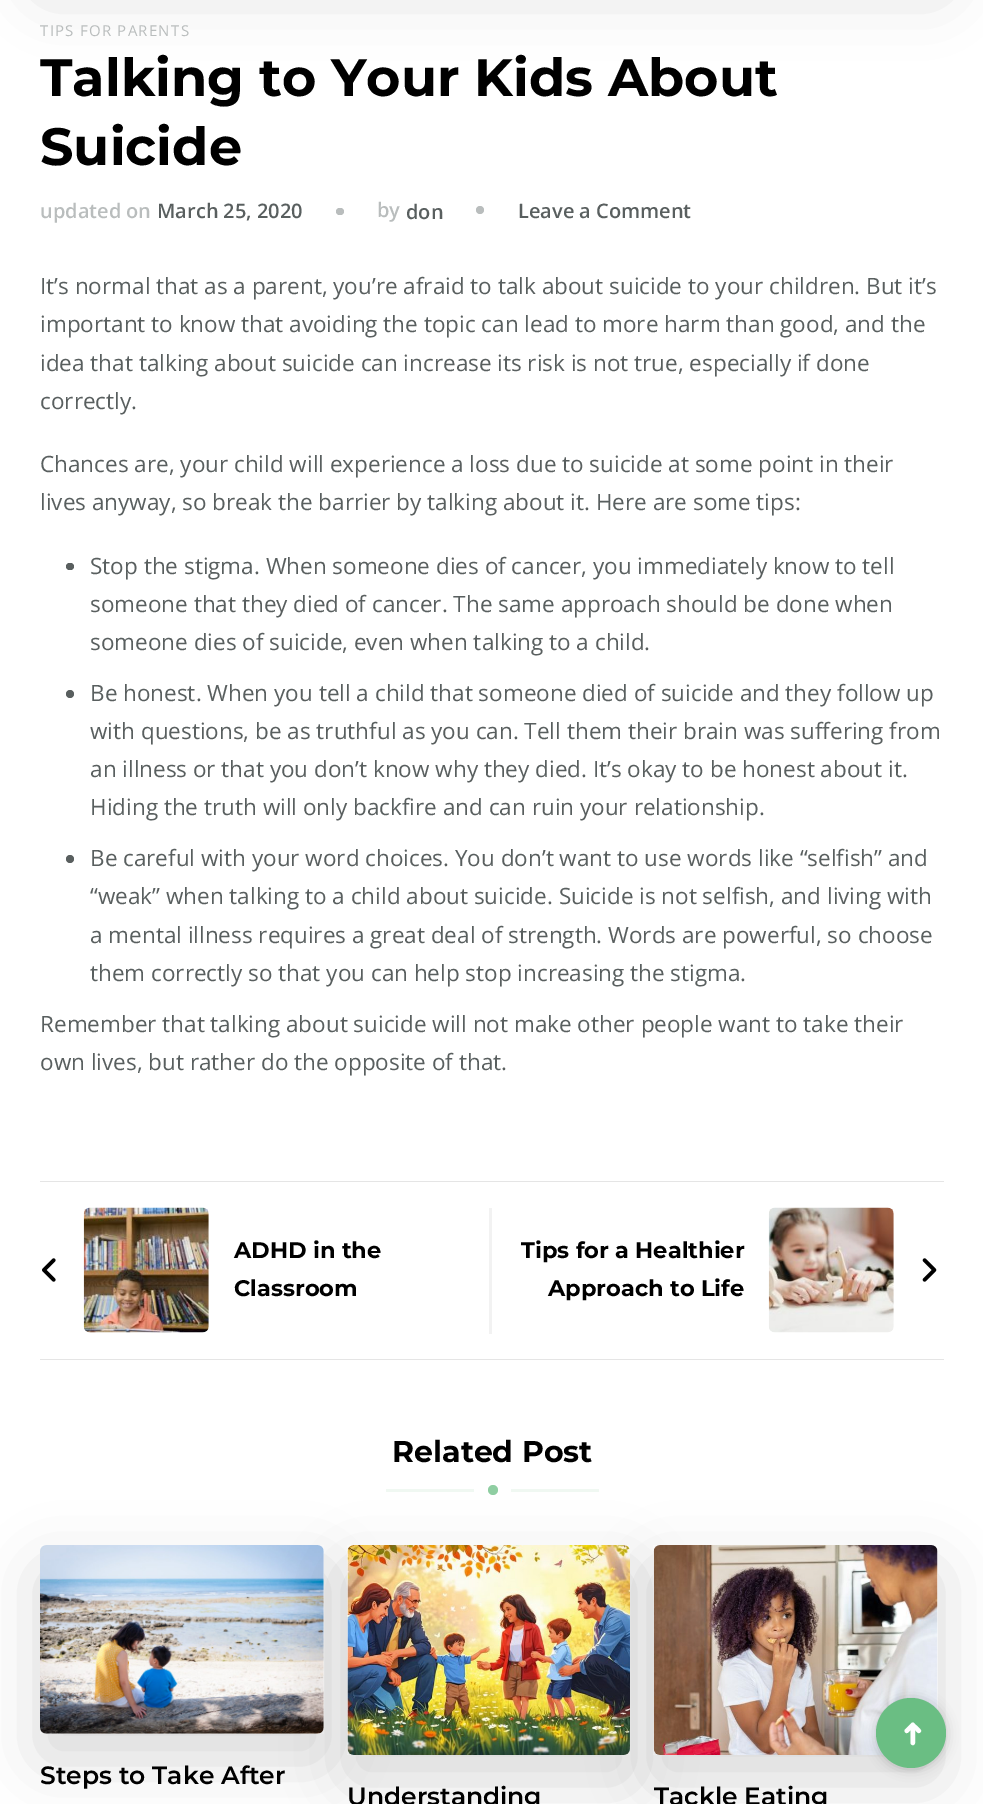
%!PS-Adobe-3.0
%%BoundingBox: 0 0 983 1804
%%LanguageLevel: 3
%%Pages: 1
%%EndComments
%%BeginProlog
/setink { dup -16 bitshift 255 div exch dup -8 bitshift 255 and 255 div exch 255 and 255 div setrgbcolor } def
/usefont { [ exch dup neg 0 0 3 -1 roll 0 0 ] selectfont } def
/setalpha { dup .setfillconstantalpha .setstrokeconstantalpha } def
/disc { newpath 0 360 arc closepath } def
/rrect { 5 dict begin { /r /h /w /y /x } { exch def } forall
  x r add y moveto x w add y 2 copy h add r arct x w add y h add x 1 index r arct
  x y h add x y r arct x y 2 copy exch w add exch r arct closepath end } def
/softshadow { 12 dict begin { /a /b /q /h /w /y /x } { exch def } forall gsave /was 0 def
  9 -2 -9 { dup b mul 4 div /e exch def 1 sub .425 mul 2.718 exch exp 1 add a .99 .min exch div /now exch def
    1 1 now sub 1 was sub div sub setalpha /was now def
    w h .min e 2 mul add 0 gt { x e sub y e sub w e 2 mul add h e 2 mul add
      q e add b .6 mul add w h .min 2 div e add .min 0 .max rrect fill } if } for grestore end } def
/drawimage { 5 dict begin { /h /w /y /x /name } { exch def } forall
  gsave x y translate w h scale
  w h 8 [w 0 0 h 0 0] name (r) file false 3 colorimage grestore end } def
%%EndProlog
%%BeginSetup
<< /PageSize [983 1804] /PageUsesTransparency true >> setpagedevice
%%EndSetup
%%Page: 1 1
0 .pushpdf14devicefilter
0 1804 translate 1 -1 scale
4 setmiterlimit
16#FFFFFF setink
0 0 983 1804 rectfill
16#000000 setink
40 -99 904 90 6 31 0.15 softshadow
/OpenSans-Regular 15 usefont
16#B9BDBD setink
40 36 moveto 1.25 0 (TIPS FOR PARENTS) ashow
/Montserrat-Bold 52.5 usefont
16#000000 setink
40 96 moveto (Talking to Your Kids About) show
40 165 moveto (Suicide) show
/OpenSans-SemiBold 20 usefont
16#B9BDBD setink
40 218 moveto (updated on) show
16#595F5F setink
157 218 moveto (March 25, 2020) show
16#B9BDBD setink
336 208 8 7 3.5 rrect fill
377 217 moveto (by) show
16#595F5F setink
406 219 moveto (don) show
16#B9BDBD setink
480 210 4 disc fill
16#595F5F setink
518 218 moveto (Leave a Comment) show
/OpenSans-Regular 22.5 usefont
[
    [(It’s normal that as a parent, you’re afraid to talk about suicide to your children. But it’s) 40 294]
    [(important to know that avoiding the topic can lead to more harm than good, and the) 40 332]
    [(idea that talking about suicide can increase its risk is not true, especially if done) 40 371]
    [(correctly.) 40 409]
    [(Chances are, your child will experience a loss due to suicide at some point in their) 40 472]
    [(lives anyway, so break the barrier by talking about it. Here are some tips:) 40 510]
] { aload pop moveto show } forall
66 563 8 7 3.5 rrect fill
[
    [(Stop the stigma. When someone dies of cancer, you immediately know to tell) 90 574]
    [(someone that they died of cancer. The same approach should be done when) 90 612]
    [(someone dies of suicide, even when talking to a child.) 90 650]
] { aload pop moveto show } forall
70 694 4 disc fill
[
    [(Be honest. When you tell a child that someone died of suicide and they follow up) 90 701]
    [(with questions, be as truthful as you can. Tell them their brain was suffering from) 90 739]
    [(an illness or that you don’t know why they died. It’s okay to be honest about it.) 90 777]
    [(Hiding the truth will only backfire and can ruin your relationship.) 90 815]
] { aload pop moveto show } forall
70 859 4 disc fill
[
    [(Be careful with your word choices. You don’t want to use words like “selfish” and) 90 866]
    [(“weak” when talking to a child about suicide. Suicide is not selfish, and living with) 90 904]
    [(a mental illness requires a great deal of strength. Words are powerful, so choose) 90 943]
    [(them correctly so that you can help stop increasing the stigma.) 90 981]
    [(Remember that talking about suicide will not make other people want to take their) 40 1032]
    [(own lives, but rather do the opposite of that.) 40 1070]
] { aload pop moveto show } forall
16#E5E5E5 setink
40 1181 904 1 rectfill
40 1359 904 1 rectfill
(img1.raw) 42 1258 14 24 drawimage
(img2.raw) 83 1207 126 126 drawimage
/Montserrat-Bold 22.5 usefont
16#000000 setink
234 1258 moveto (ADHD in the) show
234 1296 moveto (Classroom) show
16#F2F2F2 setink
489 1208 3 126 rectfill
16#000000 setink
521 1258 moveto (Tips for a Healthier) show
548 1296 moveto (Approach to Life) show
(img3.raw) 768 1207 126 126 drawimage
(img4.raw) 922 1258 15 24 drawimage
/Montserrat-Bold 30 usefont
392 1462 moveto (Related Post) show
40 1570 284 189 6 31 0.15 softshadow
(img5.raw) 40 1545 284 189 drawimage
348 1570 282 210 6 31 0.15 softshadow
16#F0F8F2 setink
386 1489 88 3 rectfill
(img6.raw) 347 1545 283 210 drawimage
16#000000 setink
654 1570 284 210 6 31 0.15 softshadow
16#F0F8F2 setink
511 1489 88 3 rectfill
16#8FCEA2 setink
493 1490 5 disc fill
/Montserrat-SemiBold 25 usefont
16#000000 setink
40 1784 moveto (Steps to Take After) show
347 1805 moveto (Understanding) show
(img7.raw) 653 1545 285 210 drawimage
654 1805 moveto (Tackle Eating) show
876 1699 70 70 35 6 0.2 softshadow
16#6ABE83 setink
911 1733 35 disc fill
/DejaVuSans-Bold 31 usefont
16#FFFFFF setink
gsave 923 1747 translate -90 rotate 0 0 moveto 2 0 (➜) ashow grestore
.poppdf14devicefilter showpage
%%EOF
